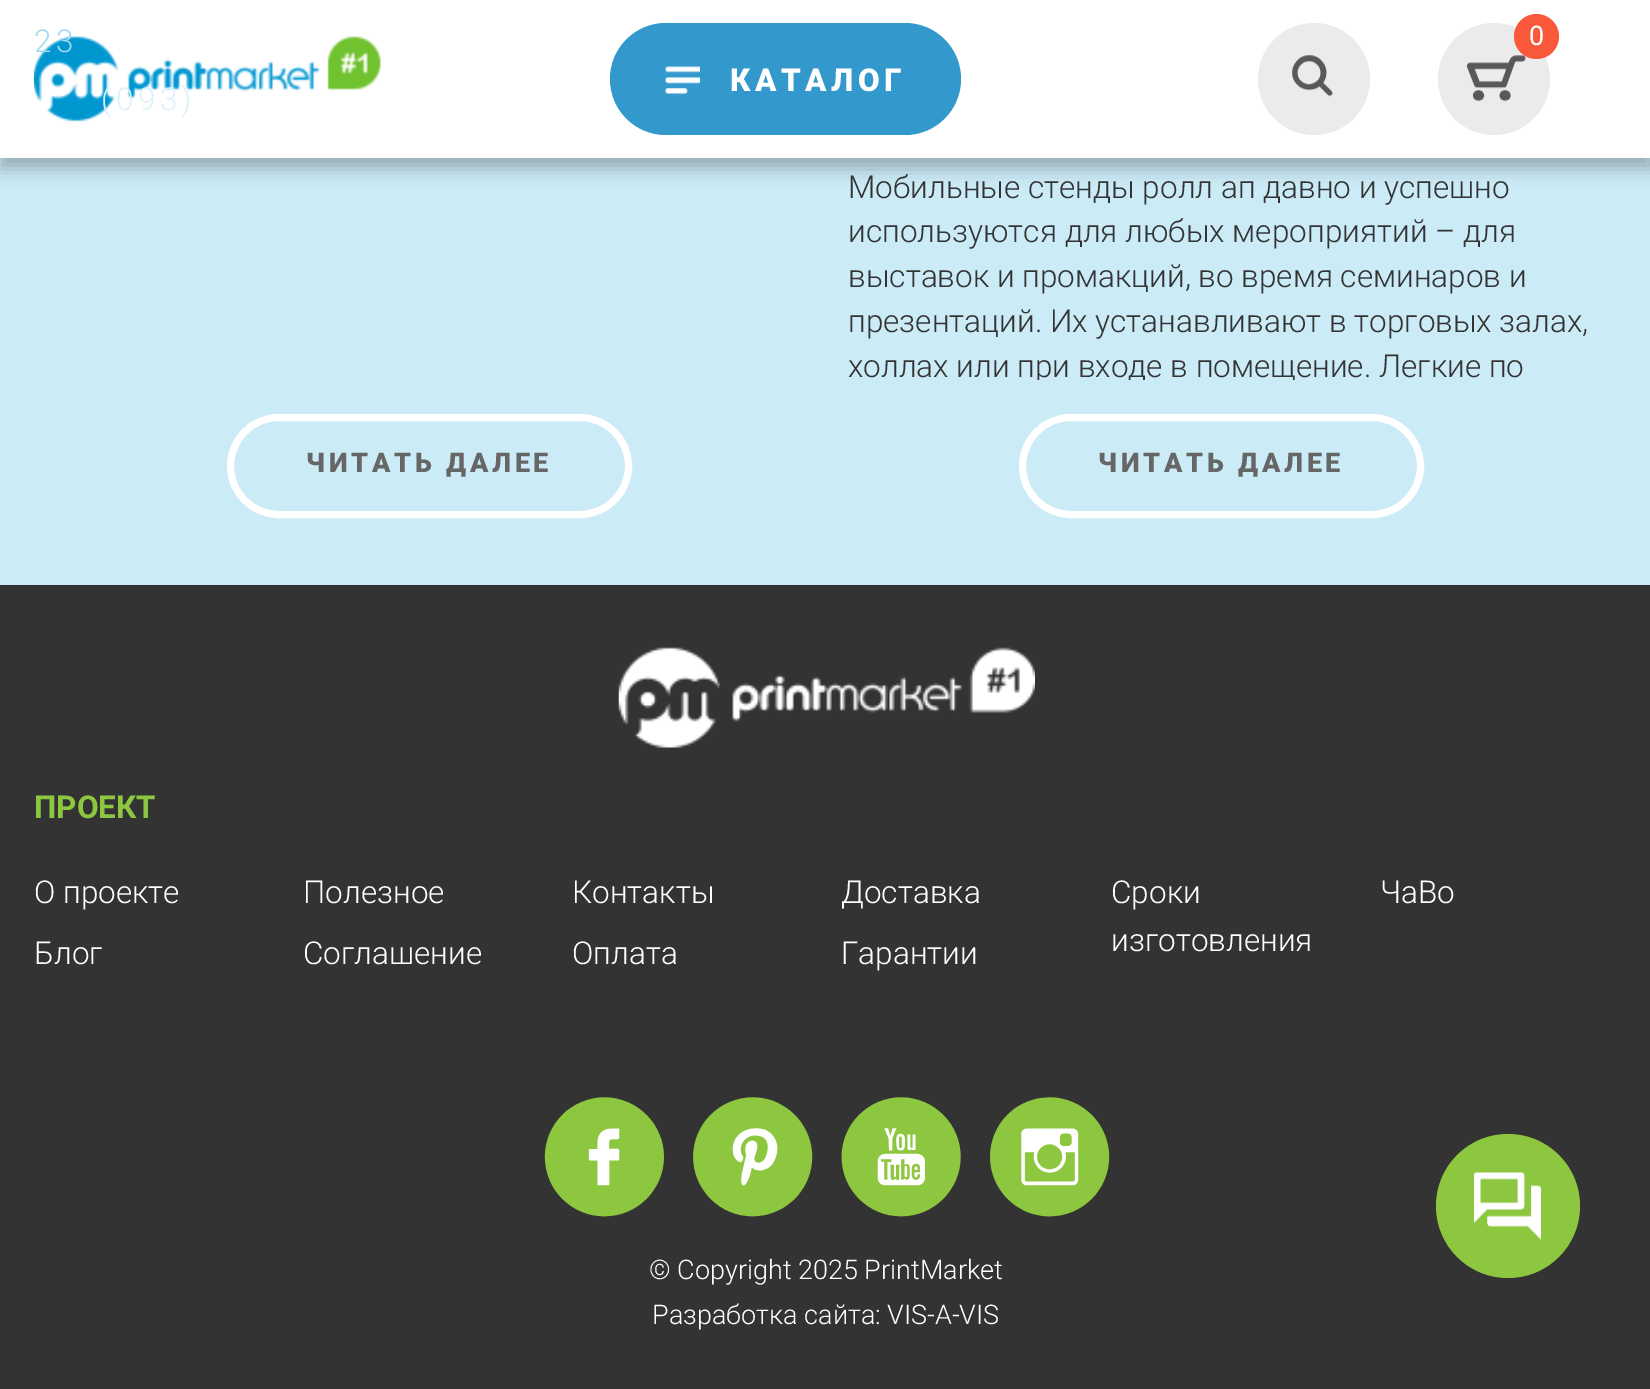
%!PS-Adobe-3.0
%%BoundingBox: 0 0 1650 1389
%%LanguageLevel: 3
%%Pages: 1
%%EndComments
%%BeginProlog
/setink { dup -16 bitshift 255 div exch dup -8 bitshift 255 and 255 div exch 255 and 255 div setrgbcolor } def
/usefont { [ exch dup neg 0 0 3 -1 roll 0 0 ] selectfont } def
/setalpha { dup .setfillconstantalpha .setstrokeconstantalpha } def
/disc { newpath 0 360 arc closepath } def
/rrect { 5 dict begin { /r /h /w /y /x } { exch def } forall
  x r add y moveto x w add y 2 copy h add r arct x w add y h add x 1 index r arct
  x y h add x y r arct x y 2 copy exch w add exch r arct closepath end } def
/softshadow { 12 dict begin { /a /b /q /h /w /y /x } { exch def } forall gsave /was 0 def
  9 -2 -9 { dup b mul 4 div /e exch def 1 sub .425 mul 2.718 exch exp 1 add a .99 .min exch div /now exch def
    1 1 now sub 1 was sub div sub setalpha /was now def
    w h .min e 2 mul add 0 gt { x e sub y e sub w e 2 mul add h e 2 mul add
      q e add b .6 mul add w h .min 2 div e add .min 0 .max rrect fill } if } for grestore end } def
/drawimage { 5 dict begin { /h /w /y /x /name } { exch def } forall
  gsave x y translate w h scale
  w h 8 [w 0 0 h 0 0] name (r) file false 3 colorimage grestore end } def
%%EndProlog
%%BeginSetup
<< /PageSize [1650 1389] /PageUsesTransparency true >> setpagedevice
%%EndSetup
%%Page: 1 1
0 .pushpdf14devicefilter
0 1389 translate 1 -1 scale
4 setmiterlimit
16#CBEBF7 setink
0 0 1650 1389 rectfill
16#000000 setink
0 -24 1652 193 0 8 0.25 softshadow
16#FFFFFF setink
0 0 1650 158 rectfill
(img1.raw) 34 36 347 86 drawimage
/Roboto-Light 31.5 usefont
16#A1D9EE setink
34 52 moveto 4.5 0 (23) ashow
16#DCF1F9 setink
101 110 moveto 4.5 0 (\(093\)) ashow
16#3399CC setink
610 23 351 112 56 rrect fill
(img2.raw) 664 66 36 29 drawimage
/Roboto-Black 31.5 usefont
16#FFFFFF setink
730 91 moveto 4.5 0 (КАТАЛОГ) ashow
16#EBEBEB setink
1314 79 56 disc fill
(img3.raw) 1292 55 41 42 drawimage
1494 79 56 disc fill
(img4.raw) 1466 55 60 47 drawimage
16#F9593A setink
1536.5 36.5 22.5 disc fill
/Roboto-Regular 27 usefont
16#FFFFFF setink
1529 45 moveto (0) show
7 setlinewidth
230.5 417.5 398 97 48.5 rrect stroke
/Roboto-Black 27 usefont
16#666666 setink
306 472 moveto 3.75 0 (ЧИТАТЬ ДАЛЕЕ) ashow
/Roboto-Light 31.5 usefont
16#333333 setink
[
    [(Мобильные стенды ролл ап давно и успешно) 848 198]
    [(используются для любых мероприятий – для) 848 242]
    [(выставок и промакций, во время семинаров и) 848 287]
    [(презентаций. Их устанавливают в торговых залах,) 848 332]
] { aload pop moveto show } forall
gsave
848 167 747 213 rectclip
848 377 moveto (холлах или при входе в помещение. Легкие по) show
grestore
16#FFFFFF setink
1022.5 417.5 398 97 48.5 rrect stroke
/Roboto-Black 27 usefont
16#666666 setink
1098 472 moveto 3.75 0 (ЧИТАТЬ ДАЛЕЕ) ashow
16#333333 setink
0 585 1650 804 rectfill
(img5.raw) 618 647 417 101 drawimage
/Roboto-Bold 31.5 usefont
16#8DC63F setink
34 818 moveto (ПРОЕКТ) show
/Roboto-Light 31.5 usefont
16#FFFFFF setink
[
    [(О проекте) 34 903]
    [(Полезное) 303 903]
    [(Контакты) 572 903]
    [(Доставка) 841 903]
    [(Сроки) 1111 903]
    [(изготовления) 1111 951]
    [(ЧаВо) 1380 903]
    [(Блог) 34 964]
    [(Соглашение) 303 964]
    [(Оплата) 572 964]
    [(Гарантии) 841 964]
] { aload pop moveto show } forall
(img6.raw) 544 1097 121 120 drawimage
(img7.raw) 693 1097 120 120 drawimage
(img8.raw) 841 1097 120 120 drawimage
(img9.raw) 990 1097 120 120 drawimage
/Roboto-Light 27 usefont
649 1279 moveto (© Copyright 2025 PrintMarket) show
652 1324 moveto (Разработка сайта: VIS-A-VIS) show
16#8DC63F setink
1508 1206 72 disc fill
(img10.raw) 1474 1172 67 68 drawimage
.poppdf14devicefilter showpage
%%EOF
